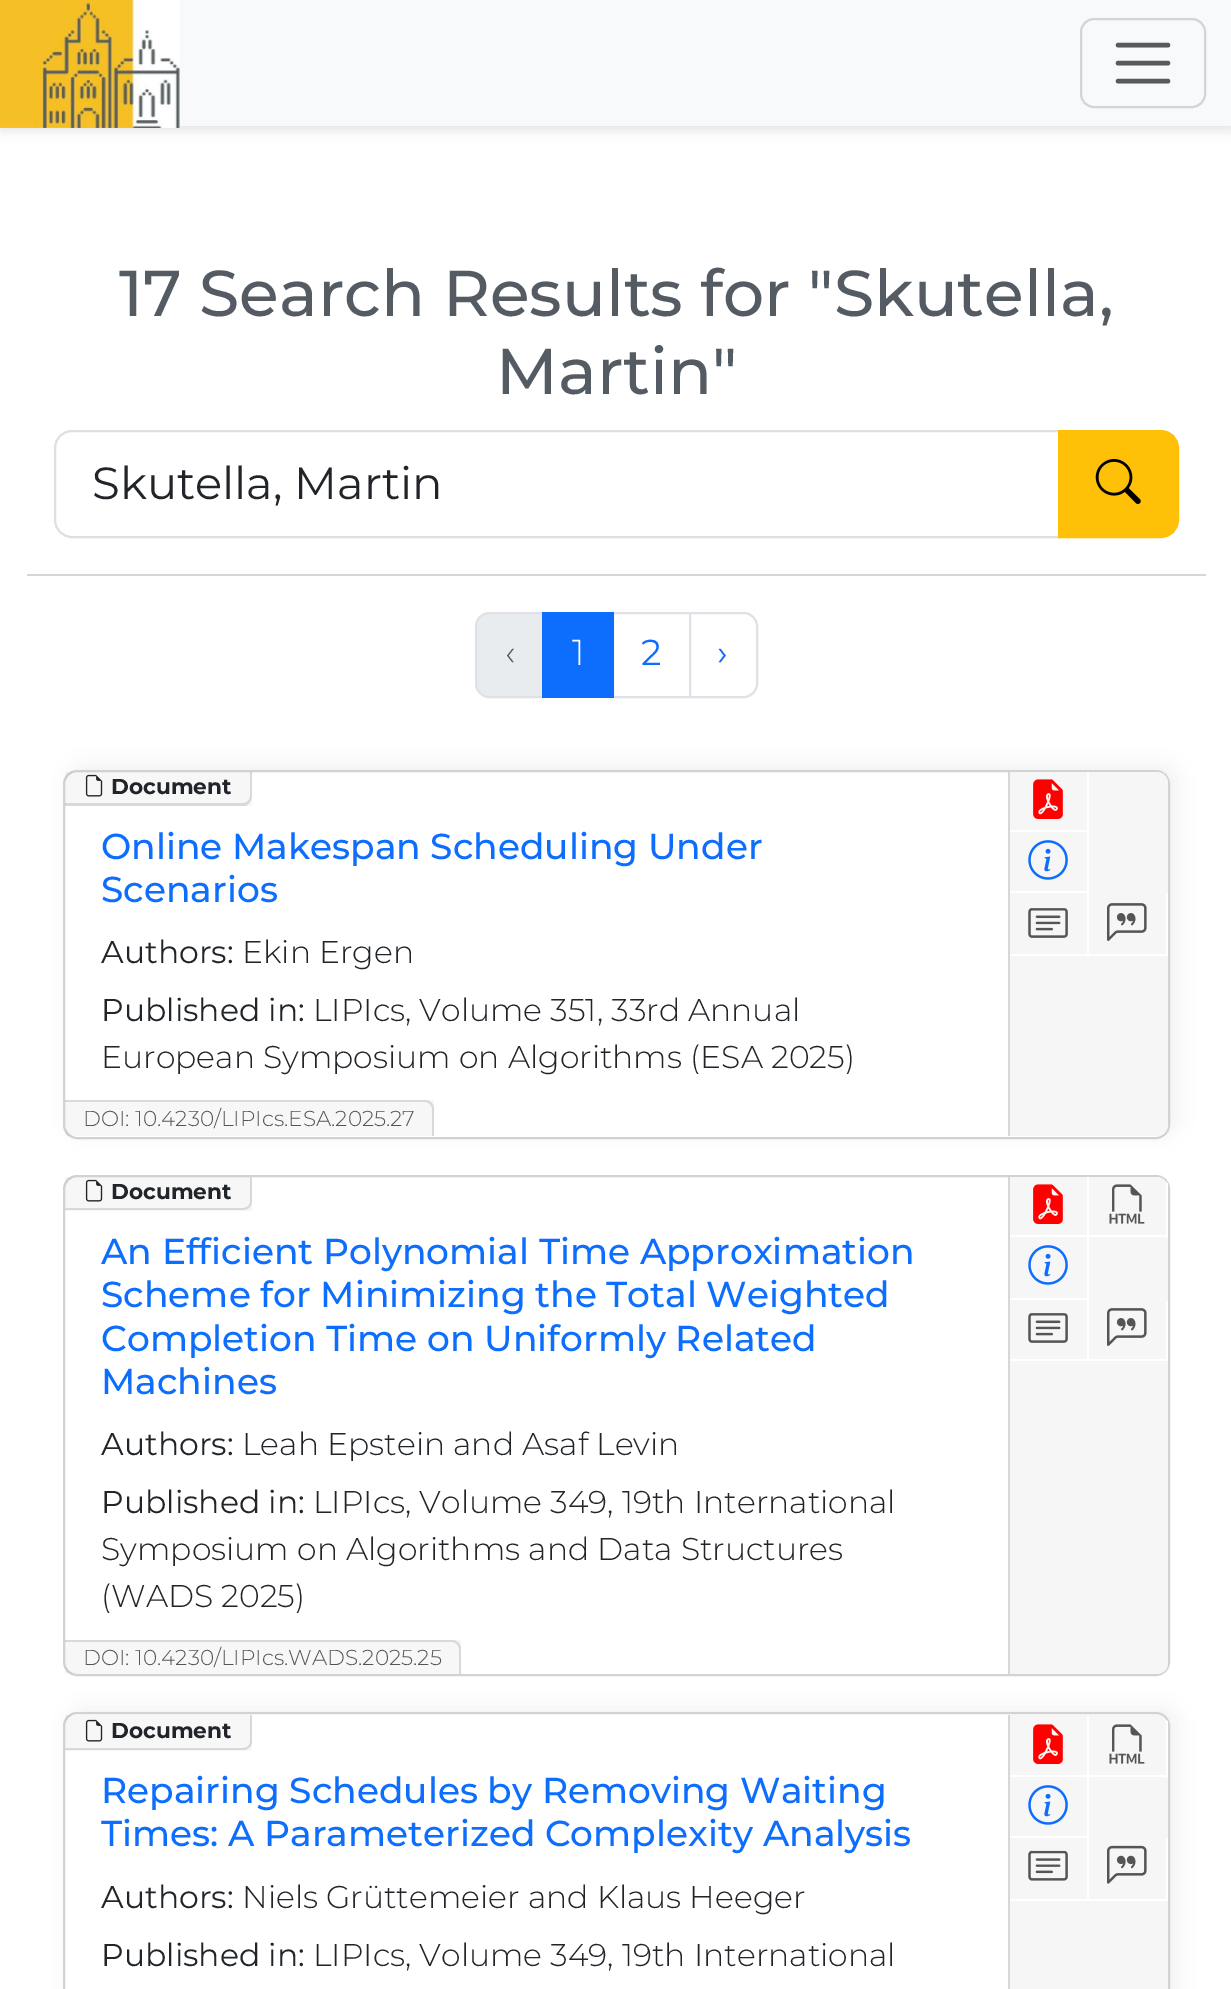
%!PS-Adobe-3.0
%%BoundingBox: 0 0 1231 1989
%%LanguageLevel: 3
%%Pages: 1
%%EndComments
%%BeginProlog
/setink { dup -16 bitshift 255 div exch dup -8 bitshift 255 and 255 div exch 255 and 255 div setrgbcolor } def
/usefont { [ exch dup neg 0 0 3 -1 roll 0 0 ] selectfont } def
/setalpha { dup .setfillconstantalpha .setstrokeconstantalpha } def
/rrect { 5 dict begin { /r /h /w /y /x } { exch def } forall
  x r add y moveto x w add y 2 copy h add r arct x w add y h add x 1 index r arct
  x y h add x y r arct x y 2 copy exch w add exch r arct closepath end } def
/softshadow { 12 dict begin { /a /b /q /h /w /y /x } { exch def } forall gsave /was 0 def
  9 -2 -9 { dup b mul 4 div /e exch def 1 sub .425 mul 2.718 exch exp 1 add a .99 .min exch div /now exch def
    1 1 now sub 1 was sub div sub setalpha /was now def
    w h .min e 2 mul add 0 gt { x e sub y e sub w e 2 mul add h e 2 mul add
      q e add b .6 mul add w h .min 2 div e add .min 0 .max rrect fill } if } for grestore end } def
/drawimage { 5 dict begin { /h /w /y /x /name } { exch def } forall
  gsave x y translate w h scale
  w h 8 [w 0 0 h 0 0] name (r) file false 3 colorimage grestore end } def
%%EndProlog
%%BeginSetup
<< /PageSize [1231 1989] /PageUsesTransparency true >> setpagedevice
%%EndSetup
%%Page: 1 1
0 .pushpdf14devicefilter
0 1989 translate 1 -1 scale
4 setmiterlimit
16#FFFFFF setink
0 0 1231 1989 rectfill
16#000000 setink
0 5 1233 126 0 5.5 0.1 softshadow
16#F8F9FA setink
179 0 1052 126 rectfill
(img1.raw) 0 0 180 128 drawimage
16#D3D4D5 setink
2 setlinewidth
1081 19 124 88 13 rrect stroke
16#575A5D setink
4.5 setlinewidth
1 setlinecap
1118 45 moveto 1168 45 lineto 1118 63 moveto 1168 63 lineto 1118 81 moveto 1168 81 lineto stroke
/Montserrat-Medium 64.75 usefont
16#545B62 setink
119 316 moveto (17 Search Results for "Skutella,) show
496 394 moveto (Martin") show
16#DFDFDF setink
2 setlinewidth
0 setlinecap
72 431 moveto 1059 431 lineto 1059 537 lineto 72 537 lineto 62.5 537 55 529.5 55 520 curveto 55 448 lineto 55 438.5 62.5 431 72 431 curveto closepath stroke
/Montserrat-Regular 45 usefont
16#212529 setink
92 499 moveto (Skutella, Martin) show
16#FFC107 setink
1059 431 moveto 1161 431 lineto 1170.5 431 1178 438.5 1178 448 curveto 1178 520 lineto 1178 529.5 1170.5 537 1161 537 curveto 1059 537 lineto closepath gsave fill grestore
stroke
(img2.raw) 1095 459 46 45 drawimage
16#D4D6D8 setink
27 574 1179 2 rectfill
16#E9ECEF setink
489 613 moveto 544 613 lineto 544 697 lineto 489 697 lineto 482 697 476 691 476 684 curveto 476 626 lineto 476 619 482 613 489 613 curveto closepath gsave fill grestore
16#DEE2E6 setink
stroke
/Montserrat-Light 36 usefont
16#53575B setink
505 665 moveto (‹) show
16#DEE2E6 setink
613 613 77 84 rectstroke
16#0D6EFD setink
542 612 72 86 rectfill
16#FFFFFF setink
572 665 moveto (1) show
/Montserrat-Regular 36 usefont
16#0D6EFD setink
641 665 moveto (2) show
16#FFFFFF setink
690 613 moveto 744 613 lineto 751 613 757 619 757 626 curveto 757 684 lineto 757 691 751 697 744 697 curveto 690 697 lineto closepath gsave fill grestore
16#DEE2E6 setink
stroke
16#0D6EFD setink
717 665 moveto (›) show
16#000000 setink
70 765 1107 369 14 11 0.05 softshadow
16#FFFFFF setink
64 771 1105 367 13 rrect gsave fill grestore
16#D2D2D2 setink
stroke
0.03 setalpha
16#000000 setink
65 772 187 34 rectfill
0.12 setalpha
65 772 moveto 252 772 lineto 252 796 lineto 252 801 248 806 243 806 curveto 65 806 lineto closepath 65 772 moveto 250 772 lineto 250 796 lineto 250 800 247 803 243 803 curveto 65 803 lineto closepath eofill
1 setalpha
(img3.raw) 85 774 18 23 drawimage
/Montserrat-Bold 21.6 usefont
16#212529 setink
111 794 moveto (Document) show
16#F6F6F6 setink
1008 772 moveto 1157 772 lineto 1163 772 1168 777 1168 783 curveto 1168 1125 lineto 1168 1131 1163 1136 1157 1136 curveto 1008 1136 lineto closepath fill
[
    [1008 772 2 364 16#D7D7D7]
    [1087 772 2 184 16#FFFFFF]
    [1010 830 79 2 16#FFFFFF]
] { aload pop setink rectfill } forall
(img4.raw) 1033 779 30 40 drawimage
1010 891 79 2 rectfill
(img5.raw) 1028 840 40 40 drawimage
1010 954 79 2 rectfill
(img6.raw) 1028 908 40 30 drawimage
1166 893 2 63 rectfill
1089 954 79 2 rectfill
(img7.raw) 1107 903 40 38 drawimage
/Montserrat-Medium 36 usefont
16#0D6EFD setink
101 859 moveto (Online Makespan Scheduling Under) show
101 902 moveto (Scenarios) show
/Montserrat-Regular 31.5 usefont
16#212529 setink
101 963 moveto (Authors:) show
/Montserrat-Light 31.5 usefont
242 963 moveto (Ekin Ergen) show
/Montserrat-Regular 31.5 usefont
101 1021 moveto (Published in:) show
/Montserrat-Light 31.5 usefont
313 1021 moveto (LIPIcs, Volume 351, 33rd Annual) show
101 1068 moveto (European Symposium on Algorithms \(ESA 2025\)) show
0.03 setalpha
16#000000 setink
65 1100 369 36 rectfill
0.12 setalpha
65 1100 moveto 425 1100 lineto 430 1100 434 1104 434 1109 curveto 434 1136 lineto 65 1136 lineto closepath 65 1102 moveto 425 1102 lineto 429 1102 432 1106 432 1109 curveto 432 1136 lineto 65 1136 lineto closepath eofill
/Montserrat-Light 21.6 usefont
1 setalpha
16#555555 setink
83 1126 moveto (DOI: 10.4230/LIPIcs.ESA.2025.27) show
16#D2D2D2 setink
64 1176 1105 499 13 rrect stroke
0.03 setalpha
16#000000 setink
65 1177 187 34 rectfill
1 setalpha
16#D8D8D8 setink
65 1177 moveto 252 1177 lineto 252 1202 lineto 252 1206 248 1210 243 1210 curveto 65 1210 lineto closepath 65 1177 moveto 250 1177 lineto 250 1202 lineto 250 1205 247 1208 243 1208 curveto 65 1208 lineto closepath eofill
(img3.raw) 85 1179 18 23 drawimage
/Montserrat-Bold 21.6 usefont
16#212529 setink
111 1199 moveto (Document) show
16#F6F6F6 setink
1008 1177 moveto 1157 1177 lineto 1163 1177 1168 1182 1168 1188 curveto 1168 1663 lineto 1168 1669 1163 1674 1157 1674 curveto 1008 1674 lineto closepath fill
[
    [1008 1177 2 497 16#D7D7D7]
    [1087 1177 2 184 16#FFFFFF]
    [1010 1235 79 2 16#FFFFFF]
] { aload pop setink rectfill } forall
(img4.raw) 1033 1184 30 40 drawimage
gsave
65 1177 1103 497 11 rrect clip newpath
1166 1177 2 61 rectfill
grestore
1089 1235 79 2 rectfill
(img8.raw) 1109 1184 36 40 drawimage
1010 1298 79 2 rectfill
(img5.raw) 1028 1245 40 40 drawimage
1010 1359 79 2 rectfill
(img6.raw) 1028 1313 40 30 drawimage
1166 1301 2 60 rectfill
1089 1359 79 2 rectfill
(img7.raw) 1107 1308 40 38 drawimage
/Montserrat-Medium 36 usefont
16#0D6EFD setink
[
    [(An Efficient Polynomial Time Approximation) 101 1264]
    [(Scheme for Minimizing the Total Weighted) 101 1307]
    [(Completion Time on Uniformly Related) 101 1351]
    [(Machines) 101 1394]
] { aload pop moveto show } forall
/Montserrat-Regular 31.5 usefont
16#212529 setink
101 1455 moveto (Authors:) show
/Montserrat-Light 31.5 usefont
242 1455 moveto (Leah Epstein and Asaf Levin) show
/Montserrat-Regular 31.5 usefont
101 1513 moveto (Published in:) show
/Montserrat-Light 31.5 usefont
[
    [(LIPIcs, Volume 349, 19th International) 313 1513]
    [(Symposium on Algorithms and Data Structures) 101 1560]
    [(\(WADS 2025\)) 101 1607]
] { aload pop moveto show } forall
0.03 setalpha
16#000000 setink
65 1640 396 34 rectfill
0.12 setalpha
65 1640 moveto 452 1640 lineto 457 1640 461 1644 461 1649 curveto 461 1674 lineto 65 1674 lineto closepath 65 1642 moveto 452 1642 lineto 456 1642 459 1646 459 1649 curveto 459 1674 lineto 65 1674 lineto closepath eofill
/Montserrat-Light 21.6 usefont
1 setalpha
16#555555 setink
83 1665 moveto (DOI: 10.4230/LIPIcs.WADS.2025.25) show
16#000000 setink
70 1708 1107 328 14 11 0.05 softshadow
16#FFFFFF setink
64 1713 1105 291 13 rrect gsave fill grestore
16#D2D2D2 setink
stroke
0.03 setalpha
16#000000 setink
65 1715 187 36 rectfill
1 setalpha
16#D8D8D8 setink
65 1748 moveto 65 1750 lineto 243 1750 lineto 248 1750 252 1746 252 1742 curveto 252 1715 lineto 250 1715 lineto 250 1742 lineto 250 1745 247 1748 243 1748 curveto closepath fill
(img3.raw) 85 1719 18 23 drawimage
/Montserrat-Bold 21.6 usefont
16#212529 setink
111 1738 moveto (Document) show
16#F6F6F6 setink
1008 1715 moveto 1157 1715 lineto 1163 1715 1168 1720 1168 1726 curveto 1168 1989 lineto 1168 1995 1163 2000 1157 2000 curveto 1008 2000 lineto closepath fill
[
    [1008 1715 2 274 16#D7D7D7]
    [1087 1715 2 186 16#FFFFFF]
    [1010 1775 79 2 16#FFFFFF]
] { aload pop setink rectfill } forall
(img4.raw) 1033 1724 30 40 drawimage
gsave
65 1715 1103 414 11 rrect clip newpath
1166 1715 2 63 rectfill
grestore
1089 1775 79 2 rectfill
(img8.raw) 1109 1724 36 40 drawimage
1010 1836 79 2 rectfill
(img5.raw) 1028 1785 40 40 drawimage
1010 1899 79 2 rectfill
(img9.raw) 1028 1850 40 31 drawimage
1166 1838 2 63 rectfill
1089 1899 79 2 rectfill
(img10.raw) 1107 1845 40 39 drawimage
/Montserrat-Medium 36 usefont
16#0D6EFD setink
101 1803 moveto (Repairing Schedules by Removing Waiting) show
101 1846 moveto (Times: A Parameterized Complexity Analysis) show
/Montserrat-Regular 31.5 usefont
16#212529 setink
101 1908 moveto (Authors:) show
/Montserrat-Light 31.5 usefont
242 1908 moveto (Niels Grüttemeier and Klaus Heeger) show
/Montserrat-Regular 31.5 usefont
101 1966 moveto (Published in:) show
/Montserrat-Light 31.5 usefont
313 1966 moveto (LIPIcs, Volume 349, 19th International) show
.poppdf14devicefilter showpage
%%EOF
